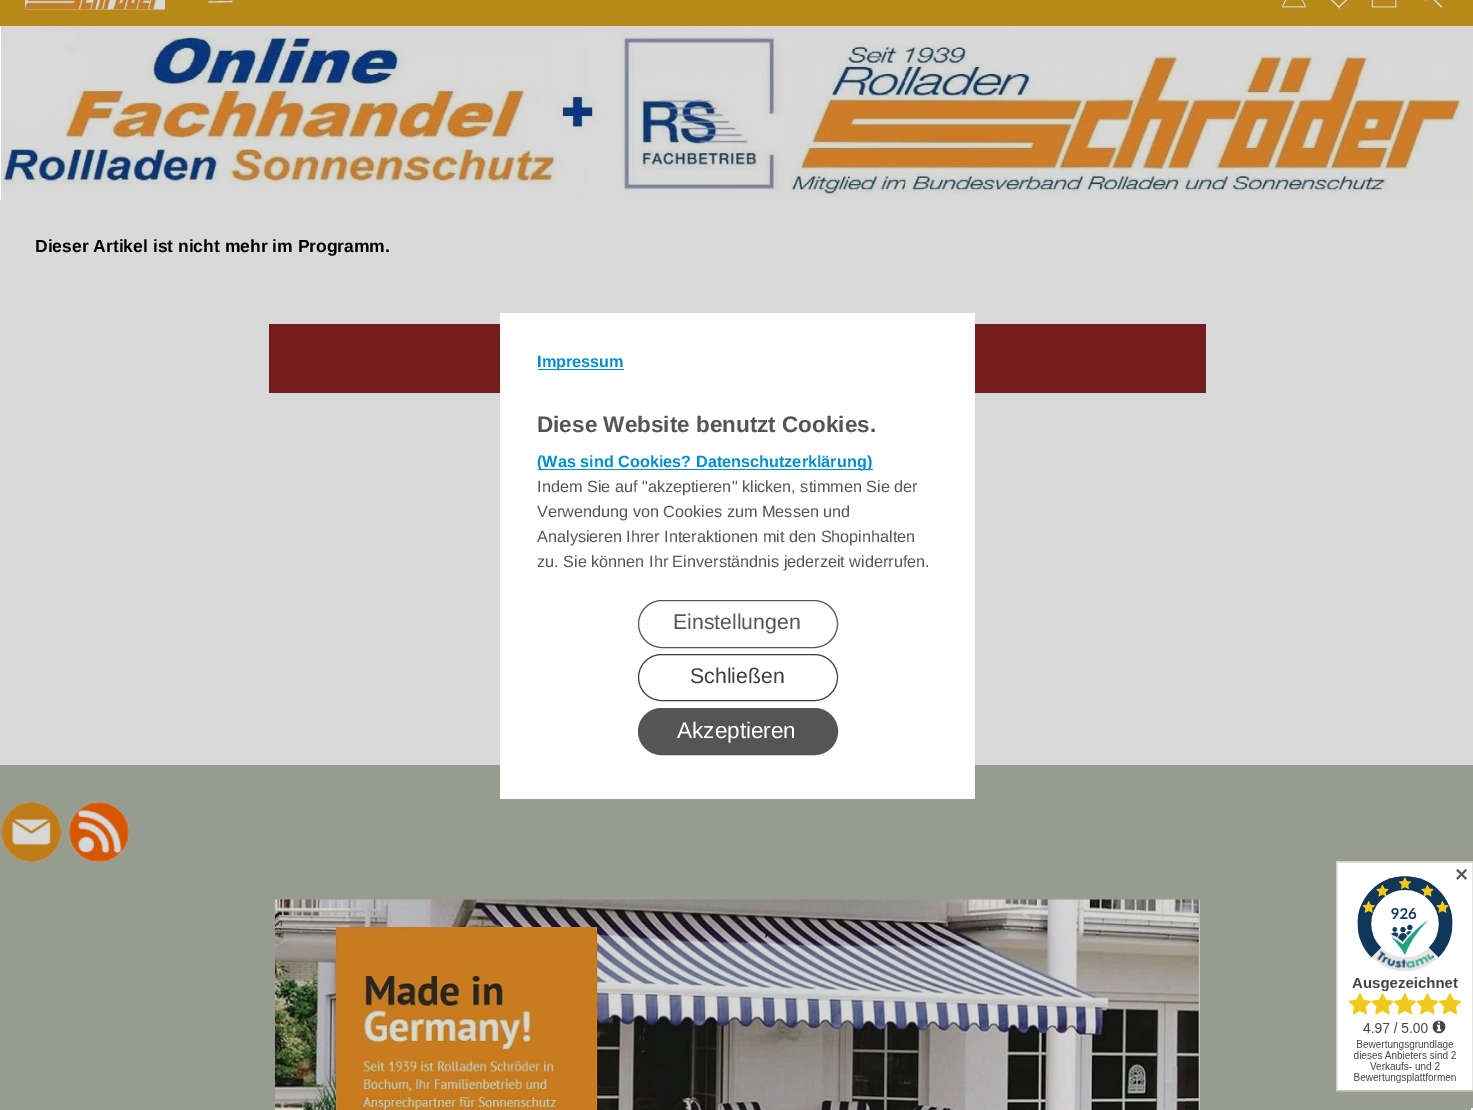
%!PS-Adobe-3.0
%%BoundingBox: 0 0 1473 1110
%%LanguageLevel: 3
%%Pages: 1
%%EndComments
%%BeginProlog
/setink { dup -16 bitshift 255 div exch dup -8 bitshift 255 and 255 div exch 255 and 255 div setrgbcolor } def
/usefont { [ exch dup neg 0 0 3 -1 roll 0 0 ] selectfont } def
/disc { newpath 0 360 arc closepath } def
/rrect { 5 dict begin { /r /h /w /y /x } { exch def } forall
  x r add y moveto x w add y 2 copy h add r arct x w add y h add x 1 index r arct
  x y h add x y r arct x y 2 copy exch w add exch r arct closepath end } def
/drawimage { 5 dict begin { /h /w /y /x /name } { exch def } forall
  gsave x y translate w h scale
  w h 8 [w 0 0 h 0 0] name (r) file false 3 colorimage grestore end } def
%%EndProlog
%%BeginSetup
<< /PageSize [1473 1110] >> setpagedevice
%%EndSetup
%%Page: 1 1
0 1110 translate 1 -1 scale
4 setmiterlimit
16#989C8E setink
0 0 1473 1110 rectfill
16#B68919 setink
0 0 1473 26 rectfill
(img1.raw) 25 0 140 10 drawimage
16#D9D9D9 setink
1.1 setlinewidth
1 setlinecap
209 2 moveto 232 1.5 lineto stroke
(img2.raw) 1282 0 24 8 drawimage
0 setlinecap
1339 7.5 moveto 1335.5 2 1327.5 -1.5 1325.5 -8 curveto 1322.5 -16.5 1336 -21.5 1339 -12.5 curveto 1342 -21.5 1355.5 -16.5 1352.5 -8 curveto 1350.5 -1.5 1342.5 2 1339 7.5 curveto closepath stroke
(img3.raw) 1371 0 26 8 drawimage
1425.5 -9.5 9 disc stroke
1 setlinecap
1431.5 -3 moveto 1441.5 7 lineto stroke
16#D6D9BD setink
0 199 1473 1 rectfill
(img4.raw) 0 26 1473 174 drawimage
16#D9D9D9 setink
0 200 1473 565 rectfill
/LiberationSans-Bold 17.5 usefont
16#000000 setink
35 252 moveto (Dieser Artikel ist nicht mehr im Programm.) show
16#741D1D setink
269 324 937 69 rectfill
(img5.raw) 1 801 61 62 drawimage
(img6.raw) 68 801 61 62 drawimage
(img7.raw) 275 899 925 211 drawimage
16#FFFFFF setink
500 313 475 486 rectfill
16#008DCB setink
538 369 86 1 rectfill
/LiberationSans-Bold 16.25 usefont
537 367 moveto (Impressum) show
/LiberationSans-Bold 22.5 usefont
16#555555 setink
537 432 moveto (Diese Website benutzt Cookies.) show
16#008DCB setink
538 469 335 1 rectfill
/LiberationSans-Bold 16.25 usefont
537 467 moveto (\(Was sind Cookies? Datenschutzerklärung\)) show
/LiberationSans-Regular 16.25 usefont
16#555555 setink
[
    [(Indem Sie auf "akzeptieren" klicken, stimmen Sie der) 537 492]
    [(Verwendung von Cookies zum Messen und) 537 517]
    [(Analysieren Ihrer Interaktionen mit den Shopinhalten) 537 542]
    [(zu. Sie können Ihr Einverständnis jederzeit widerrufen.) 537 567]
] { aload pop moveto show } forall
1 setlinewidth
0 setlinecap
638.5 600.5 199 47 23.5 rrect stroke
/LiberationSans-Regular 21.25 usefont
673 629 moveto (Einstellungen) show
16#3E3E3E setink
638.5 654.5 199 46 23 rrect stroke
690 683 moveto (Schließen) show
16#555555 setink
638.5 708.5 199 46 23 rrect gsave fill grestore
stroke
/LiberationSans-Regular 22.5 usefont
16#FFFFFF setink
677 738 moveto (Akzeptieren) show
(img8.raw) 1336 861 137 231 drawimage
/DejaVuSans-Bold 17.5 usefont
16#555555 setink
1454 881 moveto (✕) show
16#F5F5F5 setink
1471 1108 2 2 rectfill
showpage
%%EOF
